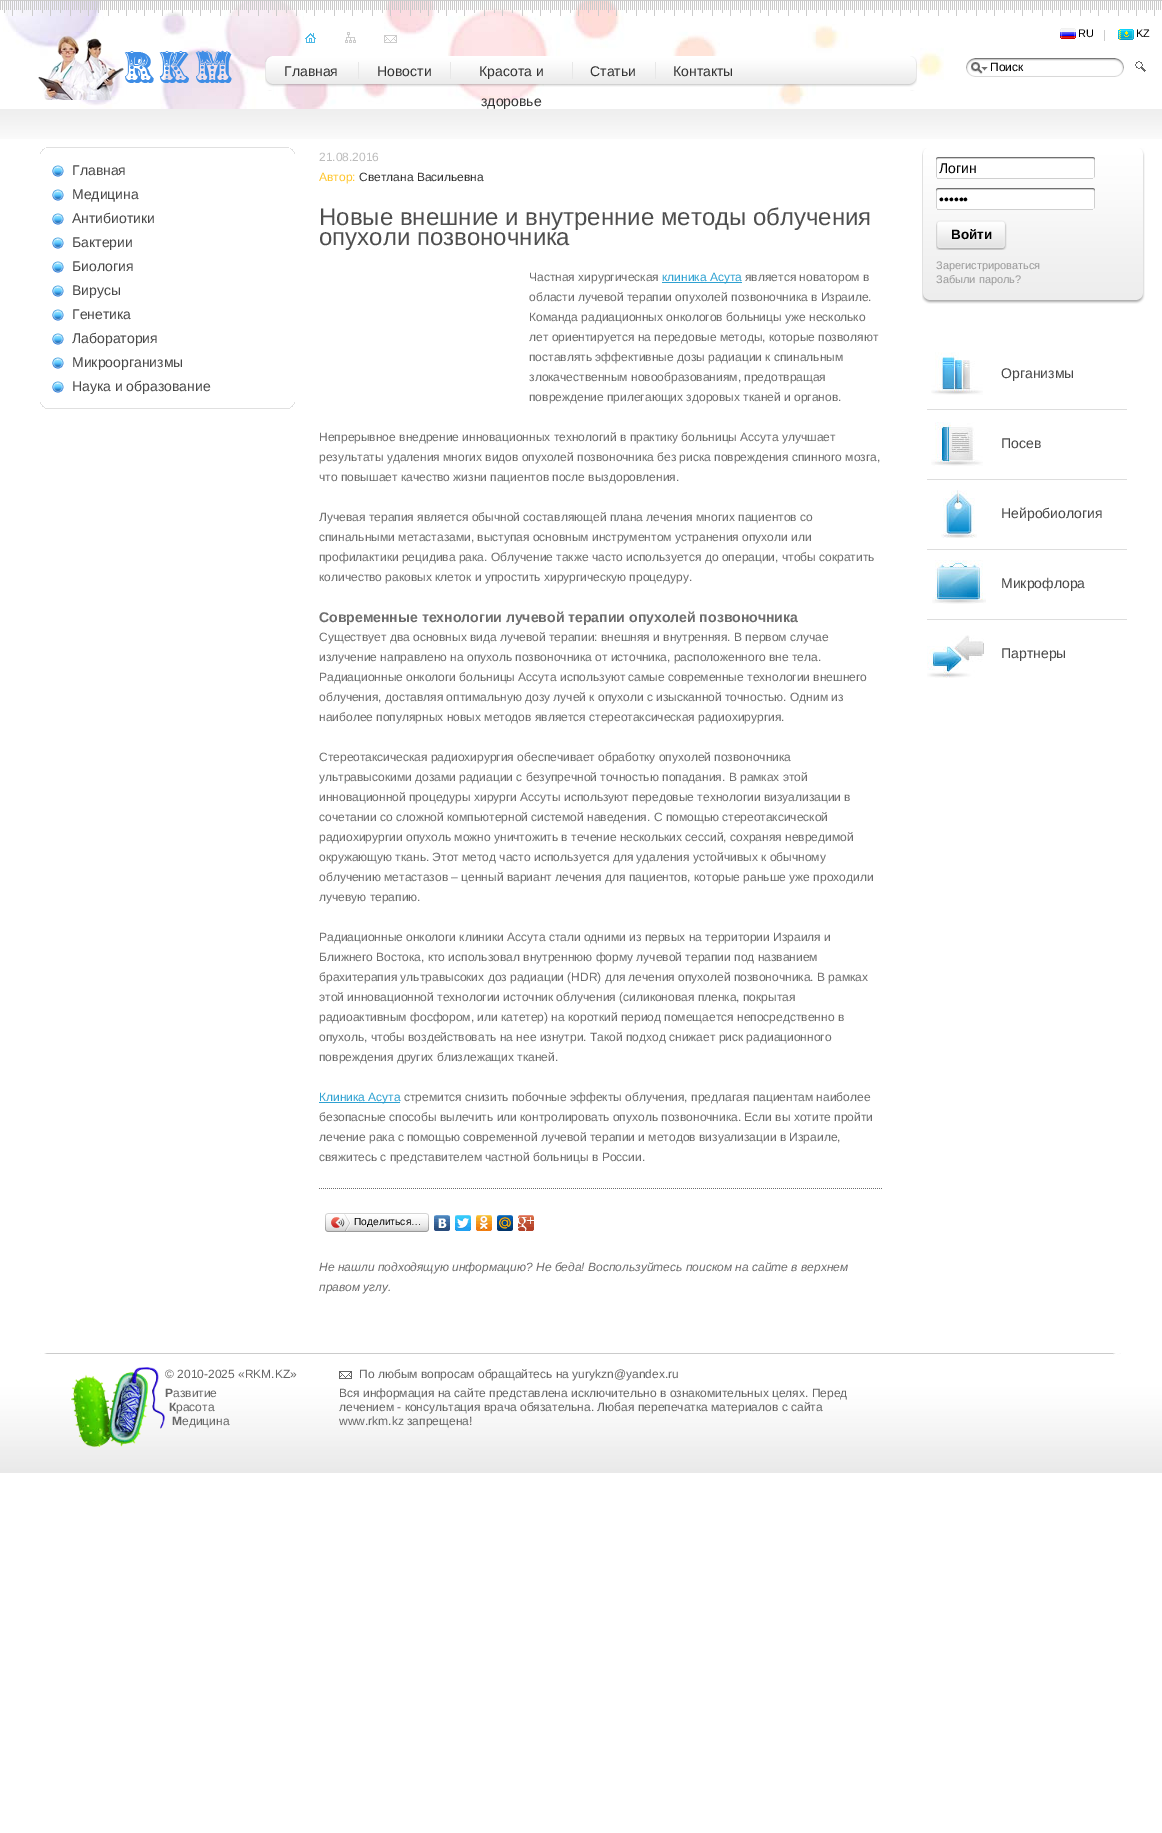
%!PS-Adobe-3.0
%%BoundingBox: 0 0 1162 1833
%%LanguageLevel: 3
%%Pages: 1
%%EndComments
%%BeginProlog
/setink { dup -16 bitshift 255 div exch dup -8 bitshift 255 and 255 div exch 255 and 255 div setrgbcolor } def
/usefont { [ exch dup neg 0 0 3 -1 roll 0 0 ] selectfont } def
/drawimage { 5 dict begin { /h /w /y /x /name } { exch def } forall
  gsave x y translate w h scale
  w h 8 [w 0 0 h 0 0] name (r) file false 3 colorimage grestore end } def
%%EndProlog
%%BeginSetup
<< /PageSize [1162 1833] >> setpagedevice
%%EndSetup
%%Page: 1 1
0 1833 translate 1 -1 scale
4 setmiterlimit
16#FFFFFF setink
0 0 1162 1833 rectfill
(img1.raw) 3 1 941 108 drawimage
(img2.raw) 0 0 1162 16 drawimage
(img3.raw) 38 35 194 65 drawimage
(img4.raw) 305 33 11 10 drawimage
(img5.raw) 345 32 11 11 drawimage
(img6.raw) 384 35 13 8 drawimage
(img7.raw) 1060 28 16 11 drawimage
/LiberationSans-Regular 11 usefont
16#000000 setink
1078 37 moveto (RU) show
16#CCCCCC setink
1104 30 1 11 rectfill
(img8.raw) 1118 29 16 11 drawimage
16#000000 setink
1136 37 moveto (KZ) show
(img9.raw) 966 58 158 19 drawimage
/LiberationSans-Regular 12 usefont
990 71 moveto (Поиск) show
(img10.raw) 1135 61 11 11 drawimage
(img11.raw) 265 56 8 35 drawimage
(img12.raw) 273 56 636 31 drawimage
16#E7E7E7 setink
265 62 1 9 rectfill
/LiberationSans-Regular 14 usefont
16#333333 setink
284 76 moveto (Главная) show
16#E7E7E7 setink
358 62 1 17 rectfill
16#333333 setink
377 76 moveto (Новости) show
16#E7E7E7 setink
450 62 1 17 rectfill
16#333333 setink
479 76 moveto (Красота и) show
481 106 moveto (здоровье) show
16#E7E7E7 setink
572 62 1 17 rectfill
16#333333 setink
590 76 moveto (Статьи) show
16#E7E7E7 setink
655 62 1 17 rectfill
16#333333 setink
673 76 moveto (Контакты) show
(img13.raw) 909 56 8 35 drawimage
(img14.raw) 0 109 1162 30 drawimage
(img15.raw) 40 147 255 7 drawimage
(img16.raw) 52 165 12 12 drawimage
16#484848 setink
72 175 moveto (Главная) show
(img16.raw) 52 189 12 12 drawimage
72 199 moveto (Медицина) show
(img16.raw) 52 213 12 12 drawimage
72 223 moveto (Антибиотики) show
(img16.raw) 52 237 12 12 drawimage
72 247 moveto (Бактерии) show
(img16.raw) 52 261 12 12 drawimage
72 271 moveto (Биология) show
(img16.raw) 52 285 12 12 drawimage
72 295 moveto (Вирусы) show
(img16.raw) 52 309 12 12 drawimage
72 319 moveto (Генетика) show
(img16.raw) 52 333 12 12 drawimage
72 343 moveto (Лаборатория) show
(img16.raw) 52 357 12 12 drawimage
72 367 moveto (Микроорганизмы) show
(img16.raw) 52 381 12 12 drawimage
72 391 moveto (Наука и образование) show
(img17.raw) 40 402 255 7 drawimage
/LiberationSans-Regular 12 usefont
16#BDBDBD setink
319 161 moveto (21.08.2016) show
16#FFC62C setink
319 181 moveto (Автор:) show
16#333333 setink
359 181 moveto (Светлана Васильевна) show
/LiberationSans-Regular 24 usefont
16#4E4E4E setink
319 225 moveto (Новые внешние и внутренние методы облучения) show
319 245 moveto (опухоли позвоночника) show
/LiberationSans-Regular 12 usefont
16#6D6D6D setink
529 281 moveto (Частная хирургическая) show
16#2EA1D1 setink
662 282 80 1 rectfill
662 281 moveto (клиника Асута) show
16#6D6D6D setink
[
    [(является новатором в) 745 281]
    [(области лучевой терапии опухолей позвоночника в Израиле.) 529 301]
    [(Команда радиационных онкологов больницы уже несколько) 529 321]
    [(лет ориентируется на передовые методы, которые позволяют) 529 341]
    [(поставлять эффективные дозы радиации к спинальным) 529 361]
    [(злокачественным новообразованиям, предотвращая) 529 381]
    [(повреждение прилегающих здоровых тканей и органов.) 529 401]
    [(Непрерывное внедрение инновационных технологий в практику больницы Ассута улучшает) 319 441]
    [(результаты удаления многих видов опухолей позвоночника без риска повреждения спинного мозга,) 319 461]
    [(что повышает качество жизни пациентов после выздоровления.) 319 481]
    [(Лучевая терапия является обычной составляющей плана лечения многих пациентов со) 319 521]
    [(спинальными метастазами, выступая основным инструментом устранения опухоли или) 319 541]
    [(профилактики рецидива рака. Облучение также часто используется до операции, чтобы сократить) 319 561]
    [(количество раковых клеток и упростить хирургическую процедуру.) 319 581]
] { aload pop moveto show } forall
/LiberationSans-Bold 14.05 usefont
319 622 moveto (Современные технологии лучевой терапии опухолей позвоночника) show
/LiberationSans-Regular 12 usefont
[
    [(Существует два основных вида лучевой терапии: внешняя и внутренняя. В первом случае) 319 641]
    [(излучение направлено на опухоль позвоночника от источника, расположенного вне тела.) 319 661]
    [(Радиационные онкологи больницы Ассута используют самые современные технологии внешнего) 319 681]
    [(облучения, доставляя оптимальную дозу лучей к опухоли с изысканной точностью. Одним из) 319 701]
    [(наиболее популярных новых методов является стереотаксическая радиохирургия.) 319 721]
    [(Стереотаксическая радиохирургия обеспечивает обработку опухолей позвоночника) 319 761]
    [(ультравысокими дозами радиации с безупречной точностью попадания. В рамках этой) 319 781]
    [(инновационной процедуры хирурги Ассуты используют передовые технологии визуализации в) 319 801]
    [(сочетании со сложной компьютерной системой наведения. С помощью стереотаксической) 319 821]
    [(радиохирургии опухоль можно уничтожить в течение нескольких сессий, сохраняя невредимой) 319 841]
    [(окружающую ткань. Этот метод часто используется для удаления устойчивых к обычному) 319 861]
    [(облучению метастазов – ценный вариант лечения для пациентов, которые раньше уже проходили) 319 881]
    [(лучевую терапию.) 319 901]
    [(Радиационные онкологи клиники Ассута стали одними из первых на территории Израиля и) 319 941]
    [(Ближнего Востока, кто использовал внутреннюю форму лучевой терапии под названием) 319 961]
    [(брахитерапия ультравысоких доз радиации \(HDR\) для лечения опухолей позвоночника. В рамках) 319 981]
    [(этой инновационной технологии источник облучения \(силиконовая пленка, покрытая) 319 1001]
    [(радиоактивным фосфором, или катетер\) на короткий период помещается непосредственно в) 319 1021]
    [(опухоль, чтобы воздействовать на нее изнутри. Такой подход снижает риск радиационного) 319 1041]
    [(повреждения других близлежащих тканей.) 319 1061]
] { aload pop moveto show } forall
16#2EA1D1 setink
319 1102 81 1 rectfill
319 1101 moveto (Клиника Асута) show
16#6D6D6D setink
[
    [(стремится снизить побочные эффекты облучения, предлагая пациентам наиболее) 404 1101]
    [(безопасные способы вылечить или контролировать опухоль позвоночника. Если вы хотите пройти) 319 1121]
    [(лечение рака с помощью современной лучевой терапии и методов визуализации в Израиле,) 319 1141]
    [(свяжитесь с представителем частной больницы в России.) 319 1161]
] { aload pop moveto show } forall
(img18.raw) 319 1188 563 1 drawimage
(img19.raw) 328 1213 98 19 drawimage
(img20.raw) 325 1213 3 19 drawimage
(img21.raw) 331 1214 20 17 drawimage
/LiberationSans-Regular 10.25 usefont
16#000000 setink
354 1225 moveto (Поделиться…) show
(img22.raw) 426 1213 3 19 drawimage
(img23.raw) 434 1215 16 16 drawimage
(img24.raw) 455 1215 16 16 drawimage
(img25.raw) 476 1215 16 16 drawimage
(img26.raw) 497 1215 16 16 drawimage
(img27.raw) 518 1215 16 16 drawimage
/LiberationSans-Italic 12 usefont
16#6D6D6D setink
319 1271 moveto (Не нашли подходящую информацию? Не беда! Воспользуйтесь поиском на сайте в верхнем) show
319 1291 moveto (правом углу.) show
(img28.raw) 922 148 223 156 drawimage
(img29.raw) 936 157 159 22 drawimage
/LiberationSans-Regular 14 usefont
16#000000 setink
939 173 moveto (Логин) show
(img29.raw) 936 188 159 22 drawimage
939 204 moveto (••••••) show
(img30.raw) 936 220 71 30 drawimage
/LiberationSans-Bold 13.5 usefont
951 239 moveto (Войти) show
/LiberationSans-Regular 11 usefont
16#999999 setink
936 269 moveto (Зарегистрироваться) show
936 283 moveto (Забыли пароль?) show
16#DDDDDD setink
927 409 200 1 rectfill
(img31.raw) 931 352 52 43 drawimage
/LiberationSans-Regular 14 usefont
16#484848 setink
1001 378 moveto (Организмы) show
16#DDDDDD setink
927 479 200 1 rectfill
(img32.raw) 931 422 52 44 drawimage
16#484848 setink
1001 448 moveto (Посев) show
16#DDDDDD setink
927 549 200 1 rectfill
(img33.raw) 941 490 36 48 drawimage
16#484848 setink
1001 518 moveto (Нейробиология) show
16#DDDDDD setink
927 619 200 1 rectfill
(img34.raw) 932 560 54 44 drawimage
16#484848 setink
1001 588 moveto (Микрофлора) show
(img35.raw) 927 635 57 43 drawimage
1001 658 moveto (Партнеры) show
(img36.raw) 0 1353 1162 120 drawimage
(img37.raw) 1113 1353 49 2 drawimage
(img38.raw) 0 1353 47 1 drawimage
(img39.raw) 71 1367 94 80 drawimage
/LiberationSans-Regular 12 usefont
16#666666 setink
165 1378 moveto (© 2010-2025 «RKM.KZ») show
/LiberationSans-Bold 12 usefont
165 1397 moveto (Р) show
/LiberationSans-Regular 12 usefont
173 1397 moveto (азвитие) show
/LiberationSans-Bold 12 usefont
169 1411 moveto (К) show
/LiberationSans-Regular 12 usefont
176 1411 moveto (расота) show
/LiberationSans-Bold 12 usefont
172 1425 moveto (М) show
/LiberationSans-Regular 12 usefont
182 1425 moveto (едицина) show
(img40.raw) 339 1371 13 8 drawimage
[
    [(По любым вопросам обращайтесь на yurykzn@yandex.ru) 359 1378]
    [(Вся информация на сайте представлена исключительно в ознакомительных целях. Перед) 339 1397]
    [(лечением - консультация врача обязательна. Любая перепечатка материалов с сайта) 339 1411]
    [(www.rkm.kz запрещена!) 339 1425]
] { aload pop moveto show } forall
showpage
%%EOF
